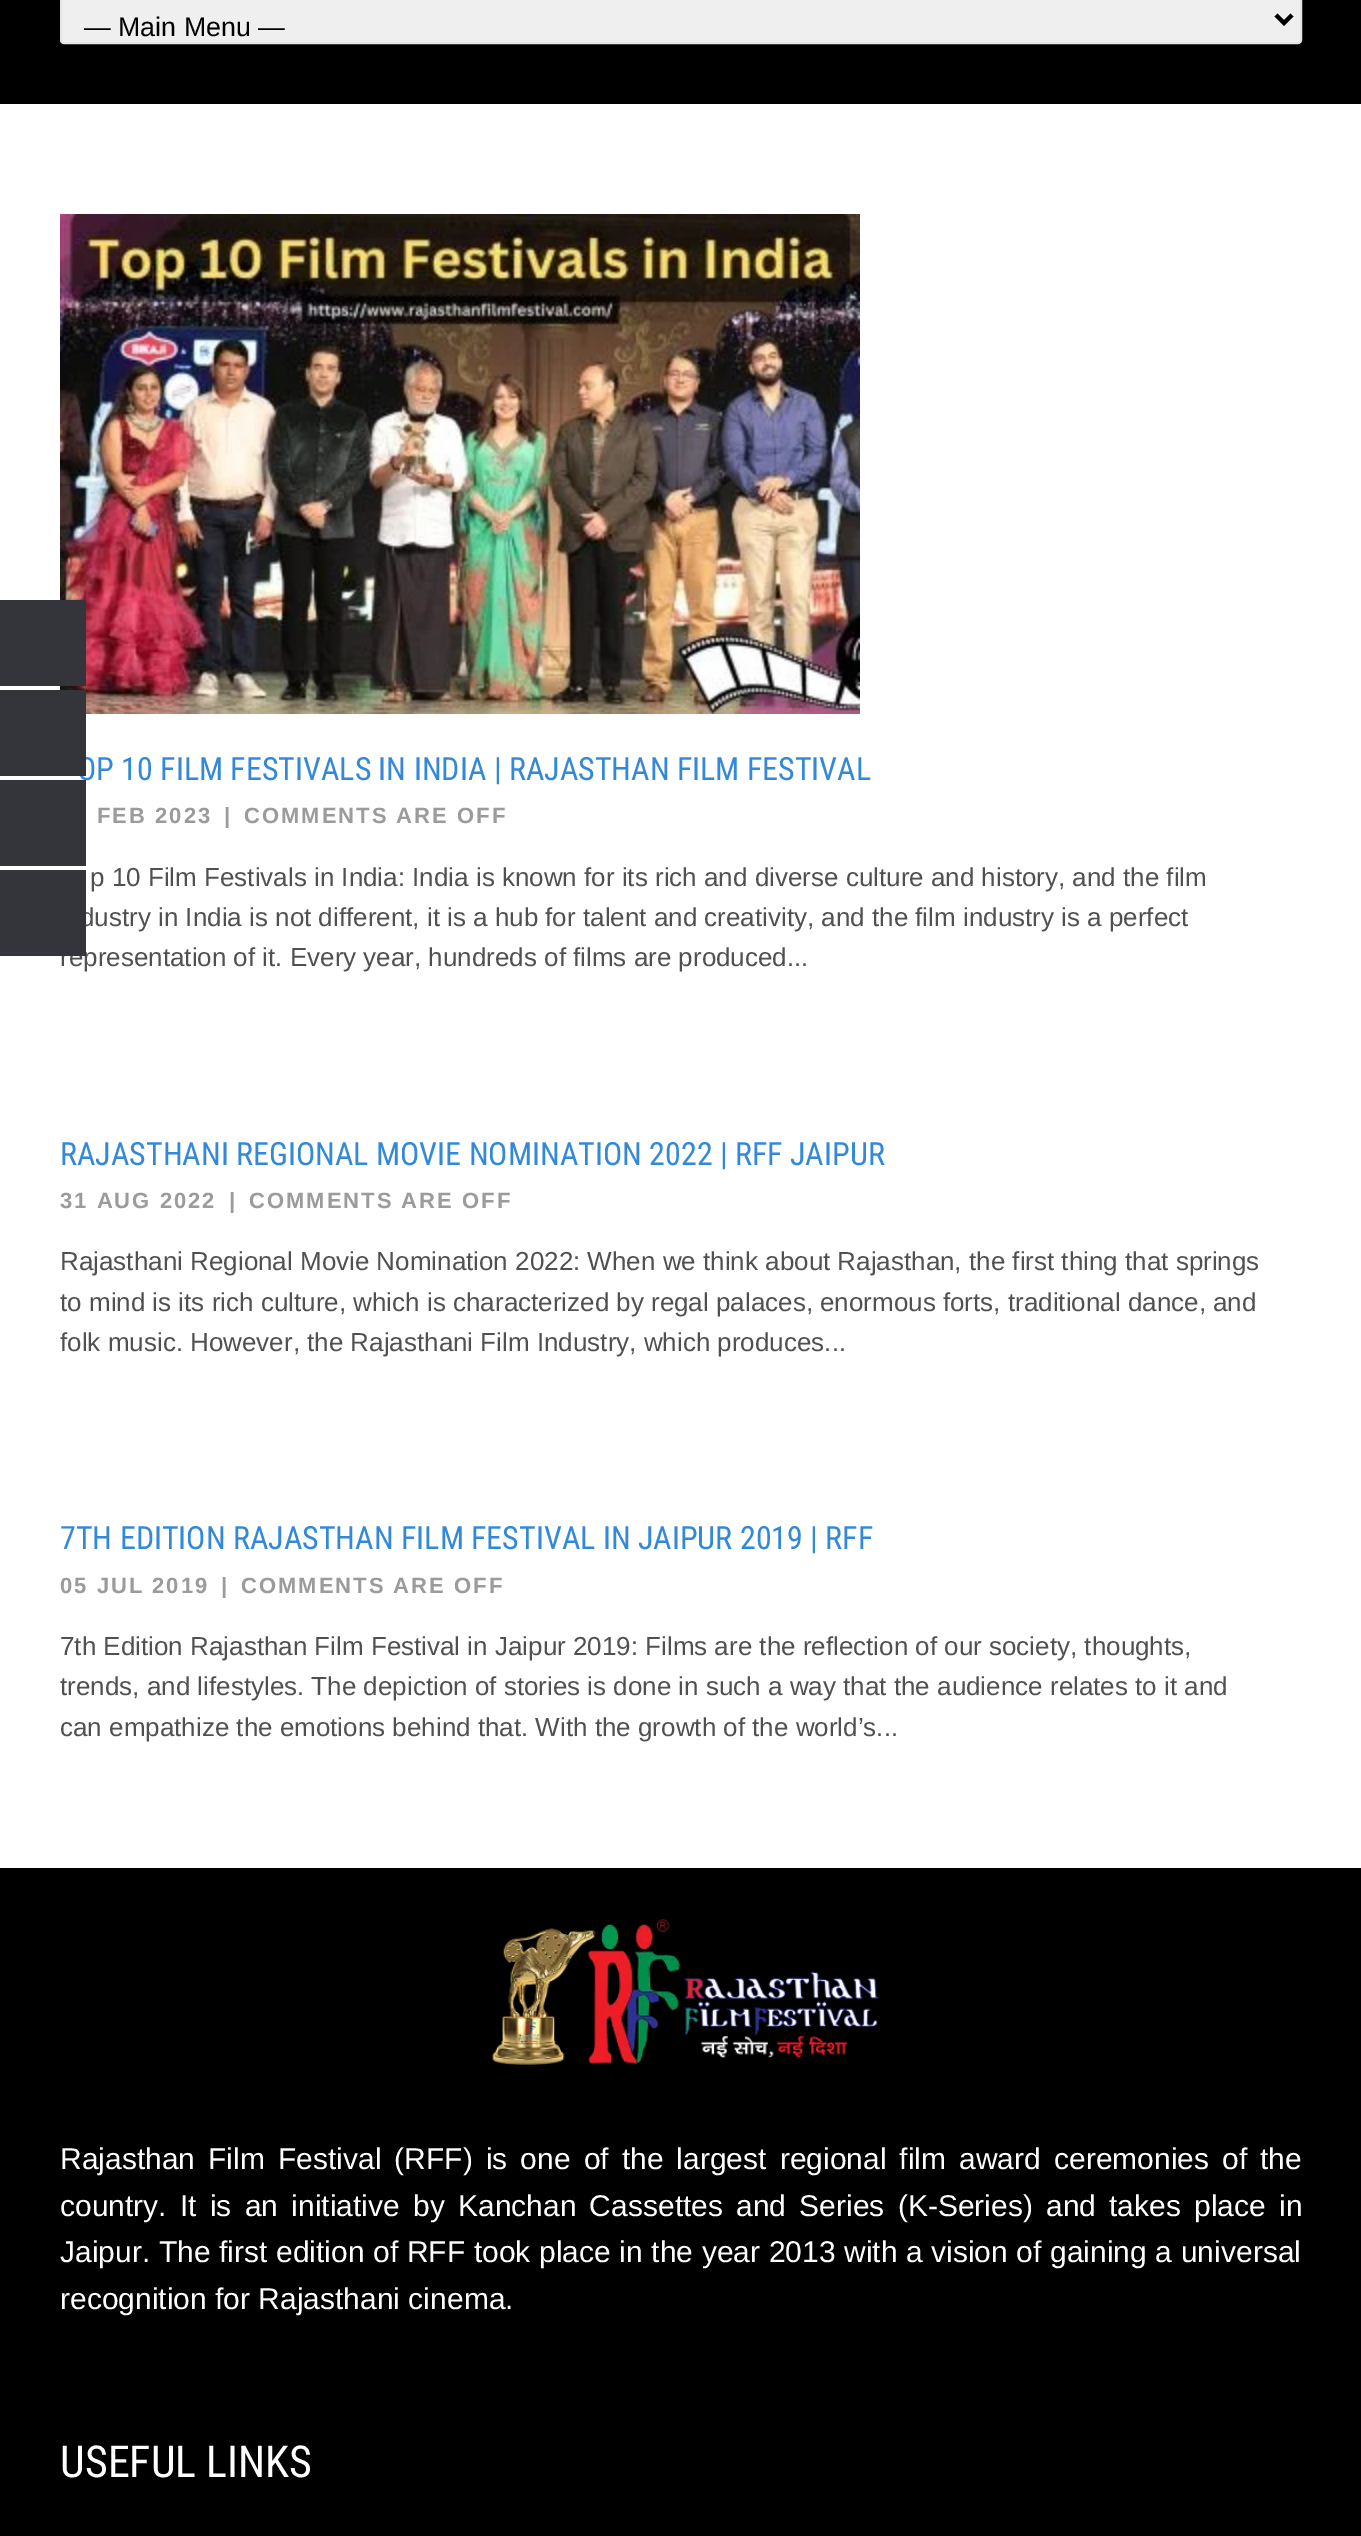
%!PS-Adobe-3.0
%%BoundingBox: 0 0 1361 2536
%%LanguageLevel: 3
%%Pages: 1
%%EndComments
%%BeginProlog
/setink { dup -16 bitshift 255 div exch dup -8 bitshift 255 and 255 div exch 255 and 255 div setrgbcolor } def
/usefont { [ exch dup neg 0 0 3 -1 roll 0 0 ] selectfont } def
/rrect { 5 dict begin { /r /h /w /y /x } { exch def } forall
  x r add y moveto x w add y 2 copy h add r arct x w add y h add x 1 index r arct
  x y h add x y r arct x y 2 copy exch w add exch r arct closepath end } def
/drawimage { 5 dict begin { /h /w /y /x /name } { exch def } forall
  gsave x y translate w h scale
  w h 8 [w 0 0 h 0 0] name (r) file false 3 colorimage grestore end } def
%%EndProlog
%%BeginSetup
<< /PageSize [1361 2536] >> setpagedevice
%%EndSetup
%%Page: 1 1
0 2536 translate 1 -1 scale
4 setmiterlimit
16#FFFFFF setink
0 0 1361 2536 rectfill
(img1.raw) 60 214 800 500 drawimage
16#33353B setink
0 600 86 86 rectfill
/RobotoCondensed-Regular 32 usefont
16#3389D7 setink
77 780 moveto (OP 10 FILM FESTIVALS IN INDIA | RAJASTHAN FILM FESTIVAL) show
16#33353B setink
0 690 86 86 rectfill
0 780 86 86 rectfill
/LiberationSans-Regular 26 usefont
16#505050 setink
80 926 moveto (dustry in India is not different, it is a hub for talent and creativity, and the film industry is a perfect) show
60 966 moveto (representation of it. Every year, hundreds of films are produced...) show
16#33353B setink
0 870 86 86 rectfill
16#000000 setink
0 0 1361 104 rectfill
16#EFEFEF setink
61 -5 1240 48 3 rrect gsave fill grestore
16#E5E5E5 setink
2 setlinewidth
stroke
16#000000 setink
4 setlinewidth
1276 15 moveto 1284 23 lineto 1292 15 lineto stroke
/LiberationSans-Regular 26.75 usefont
84 36 moveto (— Main Menu —) show
/LiberationSans-Bold 22 usefont
16#9B9B9B setink
97 823 moveto 2 0 (FEB 2023) ashow
224 823 moveto 2 0 (|) ashow
244 823 moveto 2 0 (COMMENTS ARE OFF) ashow
/LiberationSans-Regular 26 usefont
16#505050 setink
90 886 moveto (p 10 Film Festivals in India: India is known for its rich and diverse culture and history, and the film) show
/RobotoCondensed-Regular 32 usefont
16#3389D7 setink
60 1165 moveto (RAJASTHANI REGIONAL MOVIE NOMINATION 2022 | RFF JAIPUR) show
/LiberationSans-Bold 22 usefont
16#9B9B9B setink
60 1208 moveto 2 0 (31 AUG 2022) ashow
229 1208 moveto 2 0 (|) ashow
249 1208 moveto 2 0 (COMMENTS ARE OFF) ashow
/LiberationSans-Regular 26 usefont
16#505050 setink
[
    [(Rajasthani Regional Movie Nomination 2022: When we think about Rajasthan, the first thing that springs) 60 1270]
    [(to mind is its rich culture, which is characterized by regal palaces, enormous forts, traditional dance, and) 60 1311]
    [(folk music. However, the Rajasthani Film Industry, which produces...) 60 1351]
] { aload pop moveto show } forall
/RobotoCondensed-Regular 32 usefont
16#3389D7 setink
60 1549 moveto (7TH EDITION RAJASTHAN FILM FESTIVAL IN JAIPUR 2019 | RFF) show
/LiberationSans-Bold 22 usefont
16#9B9B9B setink
60 1593 moveto 2 0 (05 JUL 2019) ashow
221 1593 moveto 2 0 (|) ashow
241 1593 moveto 2 0 (COMMENTS ARE OFF) ashow
/LiberationSans-Regular 26 usefont
16#505050 setink
[
    [(7th Edition Rajasthan Film Festival in Jaipur 2019: Films are the reflection of our society, thoughts,) 60 1655]
    [(trends, and lifestyles. The depiction of stories is done in such a way that the audience relates to it and) 60 1695]
    [(can empathize the emotions behind that. With the growth of the world’s...) 60 1736]
] { aload pop moveto show } forall
16#000000 setink
0 1868 1361 668 rectfill
(img2.raw) 492 1919 387 146 drawimage
/LiberationSans-Regular 30 usefont
16#FFFFFF setink
60 2169 moveto 4.75 0 32 (Rajasthan Film Festival \(RFF\) is one of the largest regional film award ceremonies of the) widthshow
60 2216 moveto 4.9 0 32 (country. It is an initiative by Kanchan Cassettes and Series \(K-Series\) and takes place in) widthshow
60 2262 moveto 0.3 0 32 (Jaipur. The first edition of RFF took place in the year 2013 with a vision of gaining a universal) widthshow
60 2309 moveto (recognition for Rajasthani cinema.) show
/RobotoCondensed-Regular 44 usefont
60 2477 moveto (USEFUL LINKS) show
showpage
%%EOF
